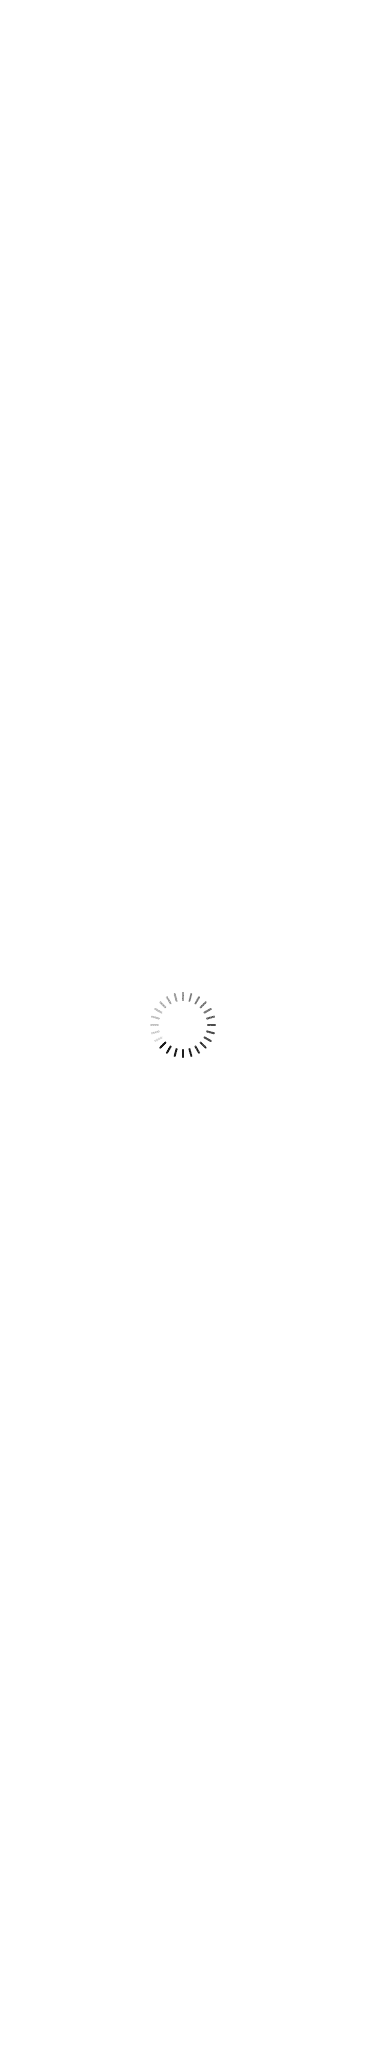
%!PS-Adobe-3.0
%%BoundingBox: 0 0 366 2049
%%LanguageLevel: 3
%%Pages: 1
%%EndComments
%%BeginProlog
/setink { dup -16 bitshift 255 div exch dup -8 bitshift 255 and 255 div exch 255 and 255 div setrgbcolor } def
/drawimage { 5 dict begin { /h /w /y /x /name } { exch def } forall
  gsave x y translate w h scale
  w h 8 [w 0 0 h 0 0] name (r) file false 3 colorimage grestore end } def
%%EndProlog
%%BeginSetup
<< /PageSize [366 2049] >> setpagedevice
%%EndSetup
%%Page: 1 1
0 2049 translate 1 -1 scale
4 setmiterlimit
16#FFFFFF setink
0 0 366 2049 rectfill
(img1.raw) 150 992 66 66 drawimage
showpage
%%EOF
